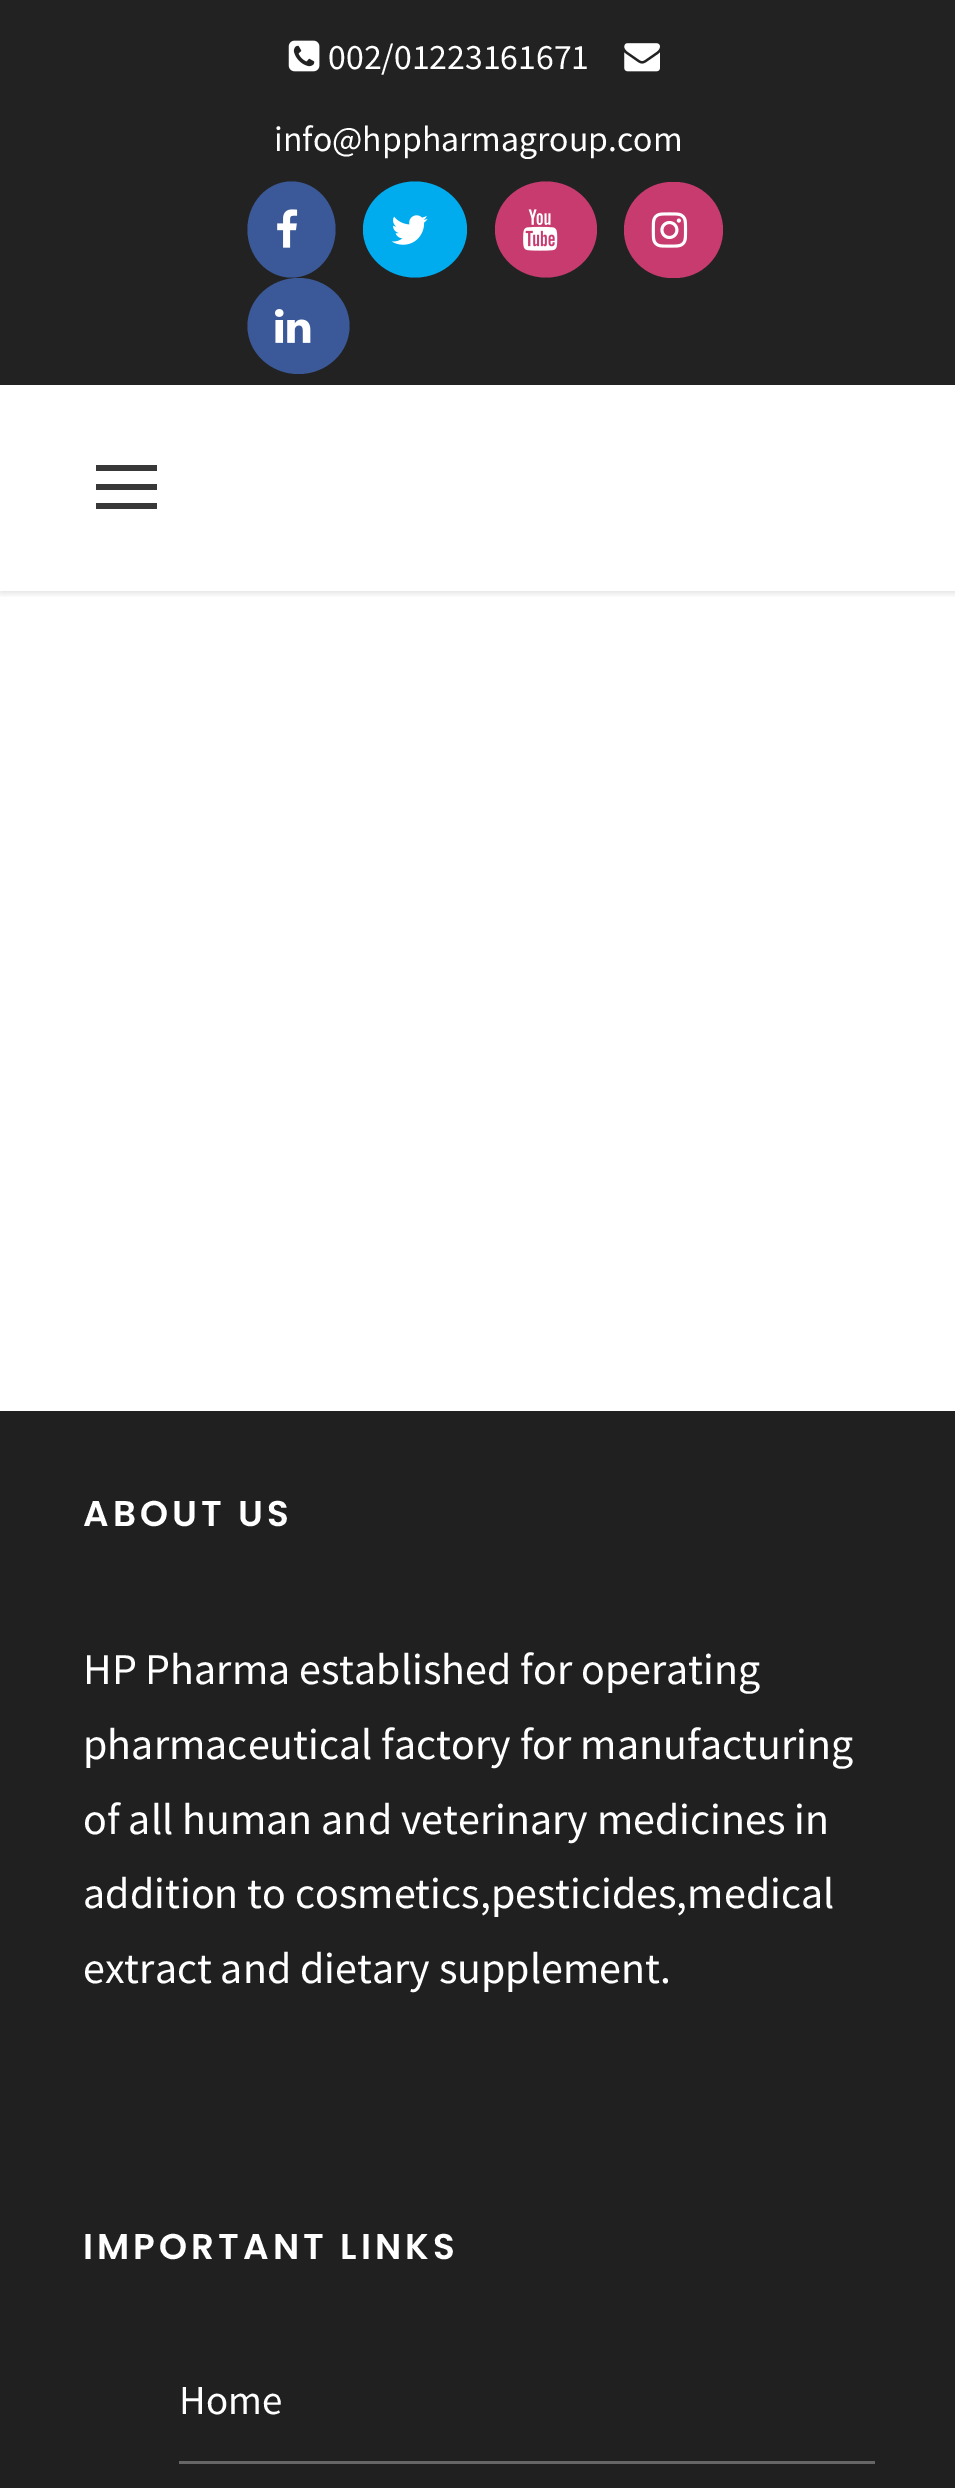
%!PS-Adobe-3.0
%%BoundingBox: 0 0 955 2488
%%LanguageLevel: 3
%%Pages: 1
%%EndComments
%%BeginProlog
/setink { dup -16 bitshift 255 div exch dup -8 bitshift 255 and 255 div exch 255 and 255 div setrgbcolor } def
/usefont { [ exch dup neg 0 0 3 -1 roll 0 0 ] selectfont } def
/setalpha { dup .setfillconstantalpha .setstrokeconstantalpha } def
/rrect { 5 dict begin { /r /h /w /y /x } { exch def } forall
  x r add y moveto x w add y 2 copy h add r arct x w add y h add x 1 index r arct
  x y h add x y r arct x y 2 copy exch w add exch r arct closepath end } def
/softshadow { 12 dict begin { /a /b /q /h /w /y /x } { exch def } forall gsave /was 0 def
  9 -2 -9 { dup b mul 4 div /e exch def 1 sub .425 mul 2.718 exch exp 1 add a .99 .min exch div /now exch def
    1 1 now sub 1 was sub div sub setalpha /was now def
    w h .min e 2 mul add 0 gt { x e sub y e sub w e 2 mul add h e 2 mul add
      q e add b .6 mul add w h .min 2 div e add .min 0 .max rrect fill } if } for grestore end } def
/drawimage { 5 dict begin { /h /w /y /x /name } { exch def } forall
  gsave x y translate w h scale
  w h 8 [w 0 0 h 0 0] name (r) file false 3 colorimage grestore end } def
%%EndProlog
%%BeginSetup
<< /PageSize [955 2488] /PageUsesTransparency true >> setpagedevice
%%EndSetup
%%Page: 1 1
0 .pushpdf14devicefilter
0 2488 translate 1 -1 scale
4 setmiterlimit
16#FFFFFF setink
0 0 955 2488 rectfill
16#222222 setink
0 0 955 385 rectfill
(img1.raw) 288 40 32 32 drawimage
/SourceSansPro-Regular 35.75 usefont
16#FFFFFF setink
328 69 moveto (002/01223161671) show
(img2.raw) 624 43 36 29 drawimage
274 151 moveto (info@hppharmagroup.com) show
16#3B5998 setink
291.5 181.5 moveto 316 181.5 335.5 203 335.5 229.5 curveto 335.5 256 316 277.5 291.5 277.5 curveto 267 277.5 247.5 256 247.5 229.5 curveto 247.5 203 267 181.5 291.5 181.5 curveto closepath fill
(img3.raw) 277 209 21 39 drawimage
16#00ACED setink
415 181.5 moveto 443.5 181.5 467 203 467 229.5 curveto 467 256 443.5 277.5 415 277.5 curveto 386.5 277.5 363 256 363 229.5 curveto 363 203 386.5 181.5 415 181.5 curveto closepath fill
(img4.raw) 391 215 37 30 drawimage
16#C73B6F setink
546 181.5 moveto 574 181.5 597 203 597 229.5 curveto 597 256 574 277.5 546 277.5 curveto 518 277.5 495 256 495 229.5 curveto 495 203 518 181.5 546 181.5 curveto closepath fill
(img5.raw) 523 209 35 42 drawimage
624 182 99 96 48 rrect fill
(img6.raw) 651 212 37 36 drawimage
16#3B5998 setink
298.5 278 moveto 326.5 278 349.5 299.5 349.5 326 curveto 349.5 352.5 326.5 374 298.5 374 curveto 270.5 374 247.5 352.5 247.5 326 curveto 247.5 299.5 270.5 278 298.5 278 curveto closepath fill
(img7.raw) 275 309 36 34 drawimage
gsave
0 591 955 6 rectclip
16#000000 setink
0 388 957 206 0 3 0.1 softshadow
grestore
[
    [96 465 61 6 16#383838]
    [96 484 61 6 16#383838]
    [96 503 61 6 16#383838]
    [0 1411 955 1077 16#202020]
] { aload pop setink rectfill } forall
/Poppins-SemiBold 35.75 usefont
16#FFFFFF setink
83 1526 moveto 4.1 0 (ABOUT US) ashow
/SourceSansPro-Regular 44 usefont
[
    [(HP Pharma established for operating) 83 1684]
    [(pharmaceutical factory for manufacturing) 83 1759]
    [(of all human and veterinary medicines in) 83 1834]
    [(addition to cosmetics,pesticides,medical) 83 1908]
    [(extract and dietary supplement.) 83 1983]
] { aload pop moveto show } forall
/Poppins-SemiBold 35.75 usefont
83 2259 moveto 4.1 0 (IMPORTANT LINKS) ashow
16#666666 setink
179 2461 696 3 rectfill
/SourceSansPro-Regular 41 usefont
16#FFFFFF setink
179 2414 moveto (Home) show
.poppdf14devicefilter showpage
%%EOF
